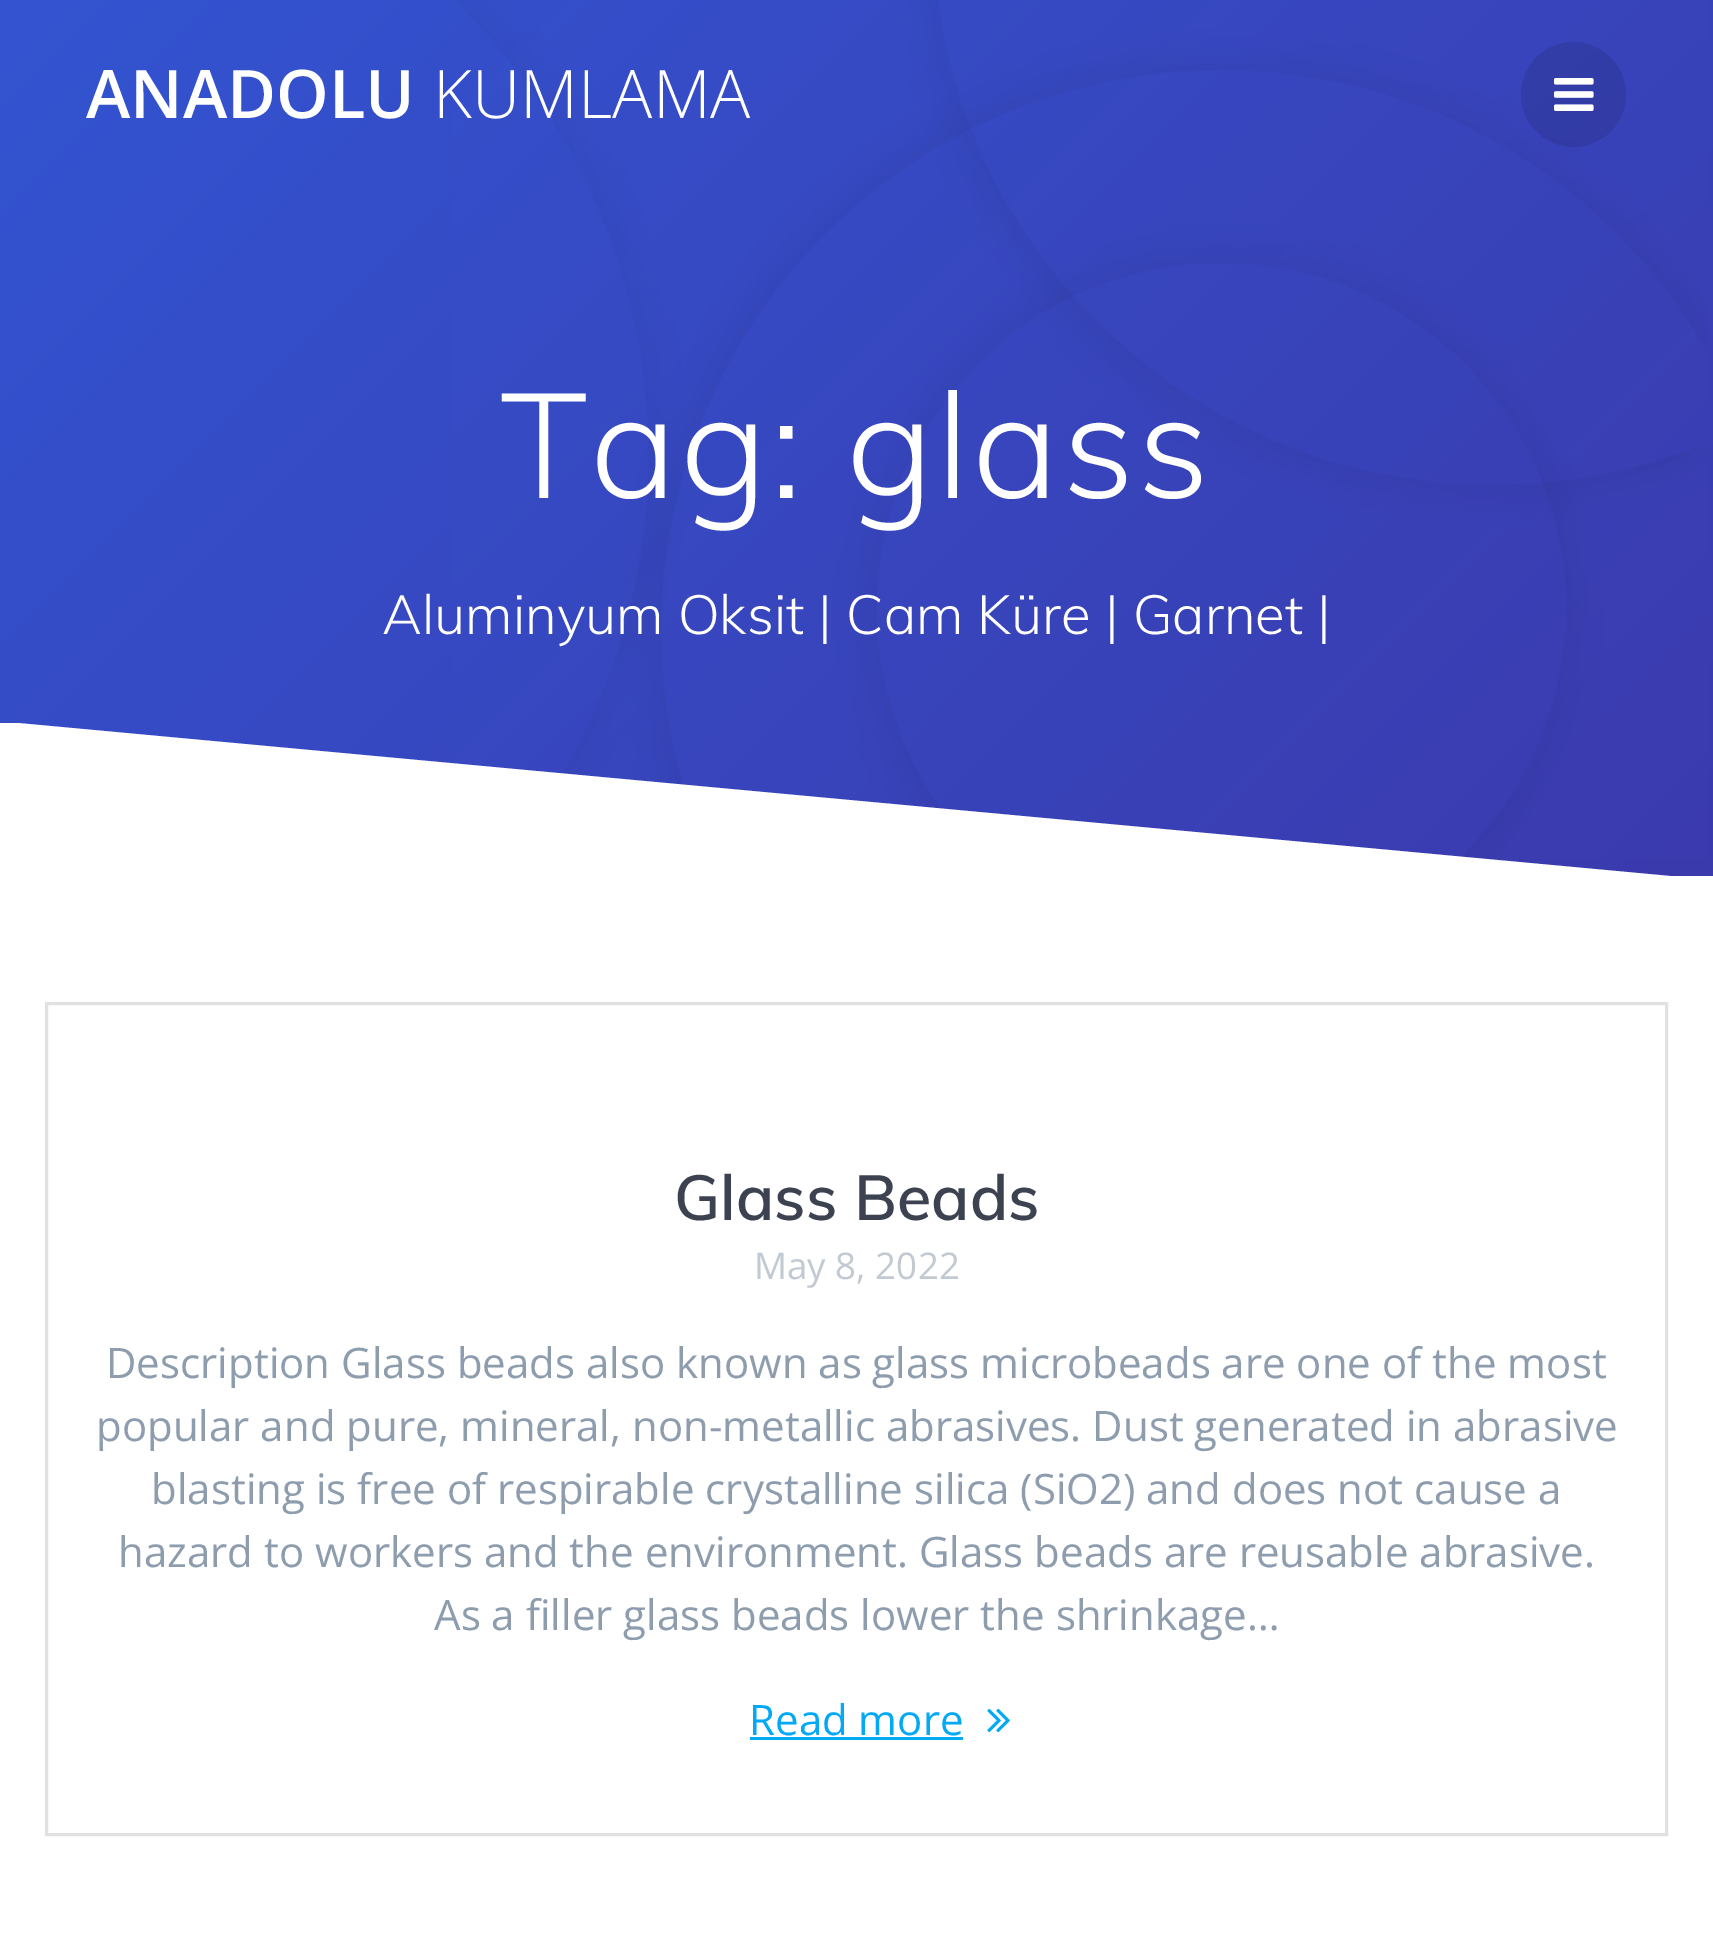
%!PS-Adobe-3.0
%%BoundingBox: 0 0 1713 1941
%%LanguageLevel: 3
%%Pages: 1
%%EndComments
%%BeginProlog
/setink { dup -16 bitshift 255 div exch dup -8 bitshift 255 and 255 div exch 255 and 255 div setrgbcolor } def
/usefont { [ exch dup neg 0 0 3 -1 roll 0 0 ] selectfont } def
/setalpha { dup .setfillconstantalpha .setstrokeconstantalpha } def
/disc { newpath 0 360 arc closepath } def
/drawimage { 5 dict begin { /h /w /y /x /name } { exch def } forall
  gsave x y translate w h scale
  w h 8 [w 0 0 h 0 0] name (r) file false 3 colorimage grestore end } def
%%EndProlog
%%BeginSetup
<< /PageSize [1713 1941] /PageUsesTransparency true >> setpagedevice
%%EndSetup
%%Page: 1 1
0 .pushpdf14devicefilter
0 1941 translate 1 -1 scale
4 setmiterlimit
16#FFFFFF setink
0 0 1713 1941 rectfill
gsave 0 0 moveto 1713 0 lineto 1713 876 lineto 0 876 lineto closepath clip newpath
<< /ShadingType 2 /ColorSpace /DeviceRGB /Coords [209 -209 1504 1085] /Extend [true true] /Function << /FunctionType 2 /Domain [0 1] /C0 [0.2 0.329 0.82] /C1 [0.231 0.227 0.678] /N 1 >> >> shfill grestore
/OpenSans-SemiBold 67 usefont
86 118 moveto (ANADOLU) show
(img2.raw) 454 0 1254 859 drawimage
/OpenSans-Light 67 usefont
433 118 moveto (KUMLAMA) show
0.1 setalpha
16#000000 setink
1573.5 94.5 52.5 disc fill
1 setalpha
(img1.raw) 1554 78 40 33 drawimage
/Muli-Light 147 usefont
16#FFFFFF setink
500 498 moveto 2.75 0 (Tag: glass) ashow
/Muli-Light 54.6 usefont
382 634 moveto (Aluminyum Oksit | Cam Küre | Garnet |) show
gsave
0 723 1713 159 rectclip
1713 880 moveto -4 880 lineto -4 721 lineto closepath fill
grestore
16#E0E1E1 setink
3 setlinewidth
46.5 1003.5 1620 831 rectstroke
/Muli-SemiBold 63 usefont
16#3C424F setink
674 1220 moveto (Glass Beads) show
/OpenSans-Regular 36.75 usefont
16#C1C9D2 setink
754 1279 moveto (May 8, 2022) show
/OpenSans-Regular 42 usefont
16#8E9DAE setink
[
    [(Description Glass beads also known as glass microbeads are one of the most) 106 1378]
    [(popular and pure, mineral, non-metallic abrasives. Dust generated in abrasive) 96 1441]
    [(blasting is free of respirable crystalline silica \(SiO2\) and does not cause a) 151 1504]
    [(hazard to workers and the environment. Glass beads are reusable abrasive.) 118 1567]
    [(As a filler glass beads lower the shrinkage…) 434 1630]
] { aload pop moveto show } forall
16#03A9F4 setink
749 1735 moveto (Read more) show
750 1737 213 3 rectfill
(img3.raw) 987 1708 23 25 drawimage
.poppdf14devicefilter showpage
%%EOF
